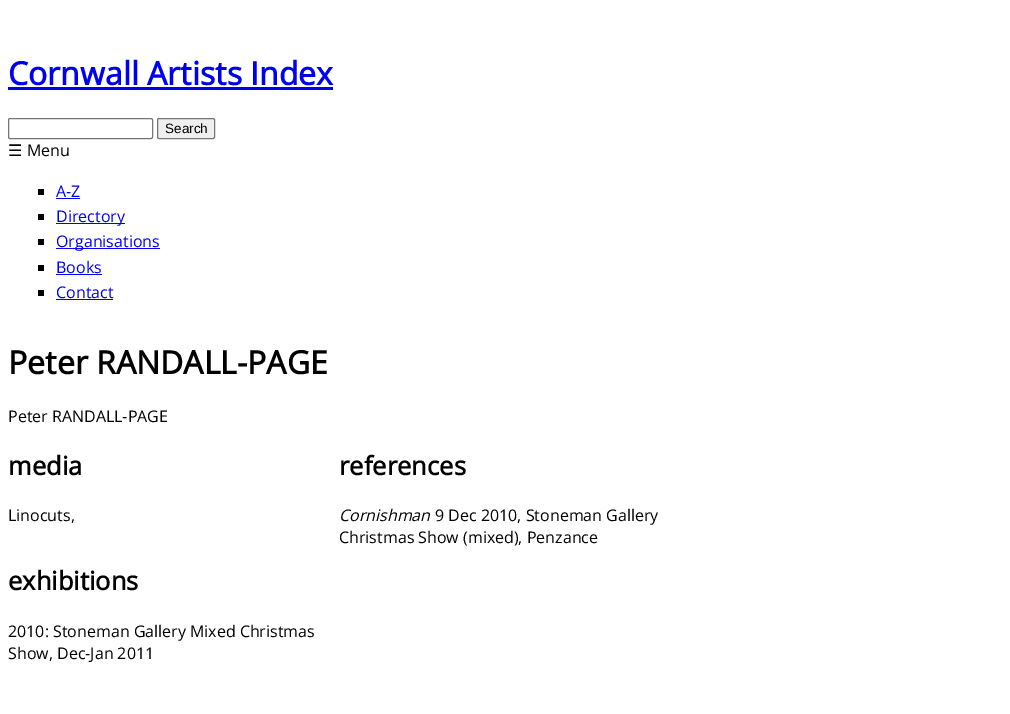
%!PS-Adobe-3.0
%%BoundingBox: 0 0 1010 714
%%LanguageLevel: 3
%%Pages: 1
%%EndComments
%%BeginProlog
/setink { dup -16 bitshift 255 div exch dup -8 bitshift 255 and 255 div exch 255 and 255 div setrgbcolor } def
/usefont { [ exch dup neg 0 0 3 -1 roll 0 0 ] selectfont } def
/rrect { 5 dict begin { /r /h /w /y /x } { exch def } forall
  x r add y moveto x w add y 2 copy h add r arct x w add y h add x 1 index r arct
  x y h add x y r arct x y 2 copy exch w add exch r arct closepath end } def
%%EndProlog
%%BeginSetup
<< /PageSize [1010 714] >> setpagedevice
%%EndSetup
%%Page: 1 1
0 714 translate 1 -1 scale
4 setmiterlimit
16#FFFFFF setink
0 0 1010 714 rectfill
/OpenSans-Bold 32 usefont
16#0000EE setink
8 85 moveto (Cornwall Artists Index) show
8 87 325 3 rectfill
16#767676 setink
8.5 118.5 144 20 1.5 rrect stroke
16#EFEFEF setink
157.5 118.5 57 20 1.5 rrect gsave fill grestore
16#767676 setink
stroke
/LiberationSans-Regular 13.5 usefont
16#000000 setink
165 133 moveto (Search) show
/DejaVuSans-Regular 16 usefont
8 156 moveto (☰) show
/OpenSans-Regular 16 usefont
27 156 moveto (Menu) show
38 189 6 6 rectfill
16#0000EE setink
56 197 moveto (A-Z) show
[
    [56 198 24 1 16#0000EE]
    [38 214 6 6 16#000000]
    [56 223 69 1 16#0000EE]
] { aload pop setink rectfill } forall
56 222 moveto (Directory) show
16#000000 setink
38 239 6 6 rectfill
16#0000EE setink
56 248 104 1 rectfill
56 247 moveto (Organisations) show
16#000000 setink
38 265 6 6 rectfill
16#0000EE setink
56 273 moveto (Books) show
56 274 46 1 rectfill
16#000000 setink
38 290 6 6 rectfill
16#0000EE setink
56 298 moveto (Contact) show
56 299 57 1 rectfill
/OpenSans-Bold 32 usefont
16#000000 setink
8 374 moveto (Peter RANDALL-PAGE) show
/OpenSans-Regular 16 usefont
8 422 moveto (Peter RANDALL-PAGE) show
/OpenSans-Bold 25.5 usefont
8 475 moveto (media) show
/OpenSans-Regular 16 usefont
8 521 moveto (Linocuts,) show
/OpenSans-Bold 25.5 usefont
8 590 moveto (exhibitions) show
/OpenSans-Regular 16 usefont
8 637 moveto (2010: Stoneman Gallery Mixed Christmas) show
8 659 moveto (Show, Dec-Jan 2011) show
/OpenSans-Bold 25.5 usefont
339 475 moveto (references) show
/OpenSans-Italic 16 usefont
339 521 moveto (Cornishman) show
/OpenSans-Regular 16 usefont
435 521 moveto (9 Dec 2010, Stoneman Gallery) show
339 543 moveto (Christmas Show \(mixed\), Penzance) show
showpage
%%EOF
